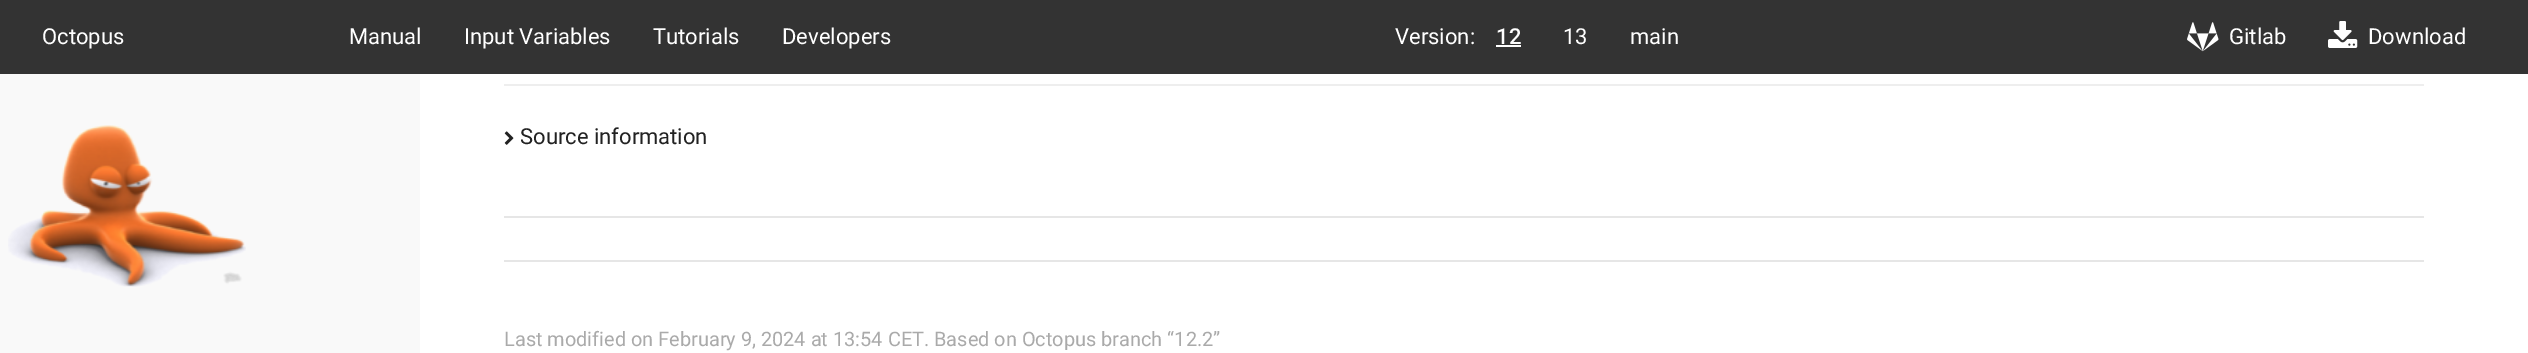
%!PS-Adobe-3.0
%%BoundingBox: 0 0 2528 353
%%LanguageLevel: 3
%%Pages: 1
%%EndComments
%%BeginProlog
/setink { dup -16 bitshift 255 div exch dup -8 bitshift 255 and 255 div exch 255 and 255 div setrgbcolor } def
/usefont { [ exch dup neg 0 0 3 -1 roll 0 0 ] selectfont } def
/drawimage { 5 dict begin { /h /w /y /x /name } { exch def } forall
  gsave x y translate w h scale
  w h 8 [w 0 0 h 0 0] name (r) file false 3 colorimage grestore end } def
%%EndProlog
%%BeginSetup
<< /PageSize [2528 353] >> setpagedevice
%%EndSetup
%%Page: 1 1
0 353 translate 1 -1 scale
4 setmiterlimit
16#FFFFFF setink
0 0 2528 353 rectfill
16#333333 setink
0 0 2528 74 rectfill
/Roboto-Regular 22 usefont
16#FFFFFF setink
[
    [(Octopus) 42 44]
    [(Manual) 349 44]
    [(Input Variables) 464 44]
    [(Tutorials) 653 44]
    [(Developers) 782 44]
    [(Version:) 1395 44]
] { aload pop moveto show } forall
/Roboto-Medium 22 usefont
1496 44 moveto (12) show
1496 45 25 2 rectfill
/Roboto-Regular 22 usefont
1563 44 moveto (13) show
1630 44 moveto (main) show
(img1.raw) 2187 22 32 30 drawimage
2229 44 moveto (Gitlab) show
(img2.raw) 2328 21 30 27 drawimage
2368 44 moveto (Download) show
16#F9F9F9 setink
0 74 420 279 rectfill
(img3.raw) 8 125 238 162 drawimage
16#EEEEEE setink
504 84 1920 2 rectfill
(img4.raw) 504 131 10 14 drawimage
16#222222 setink
520 144 moveto (Source information) show
16#E6E6E6 setink
504 216 1920 2 rectfill
504 260 1920 2 rectfill
/Roboto-Regular 19.95 usefont
16#AAAAAA setink
504 346 moveto (Last modified on February 9, 2024 at 13:54 CET. Based on Octopus branch “12.2”) show
showpage
%%EOF
